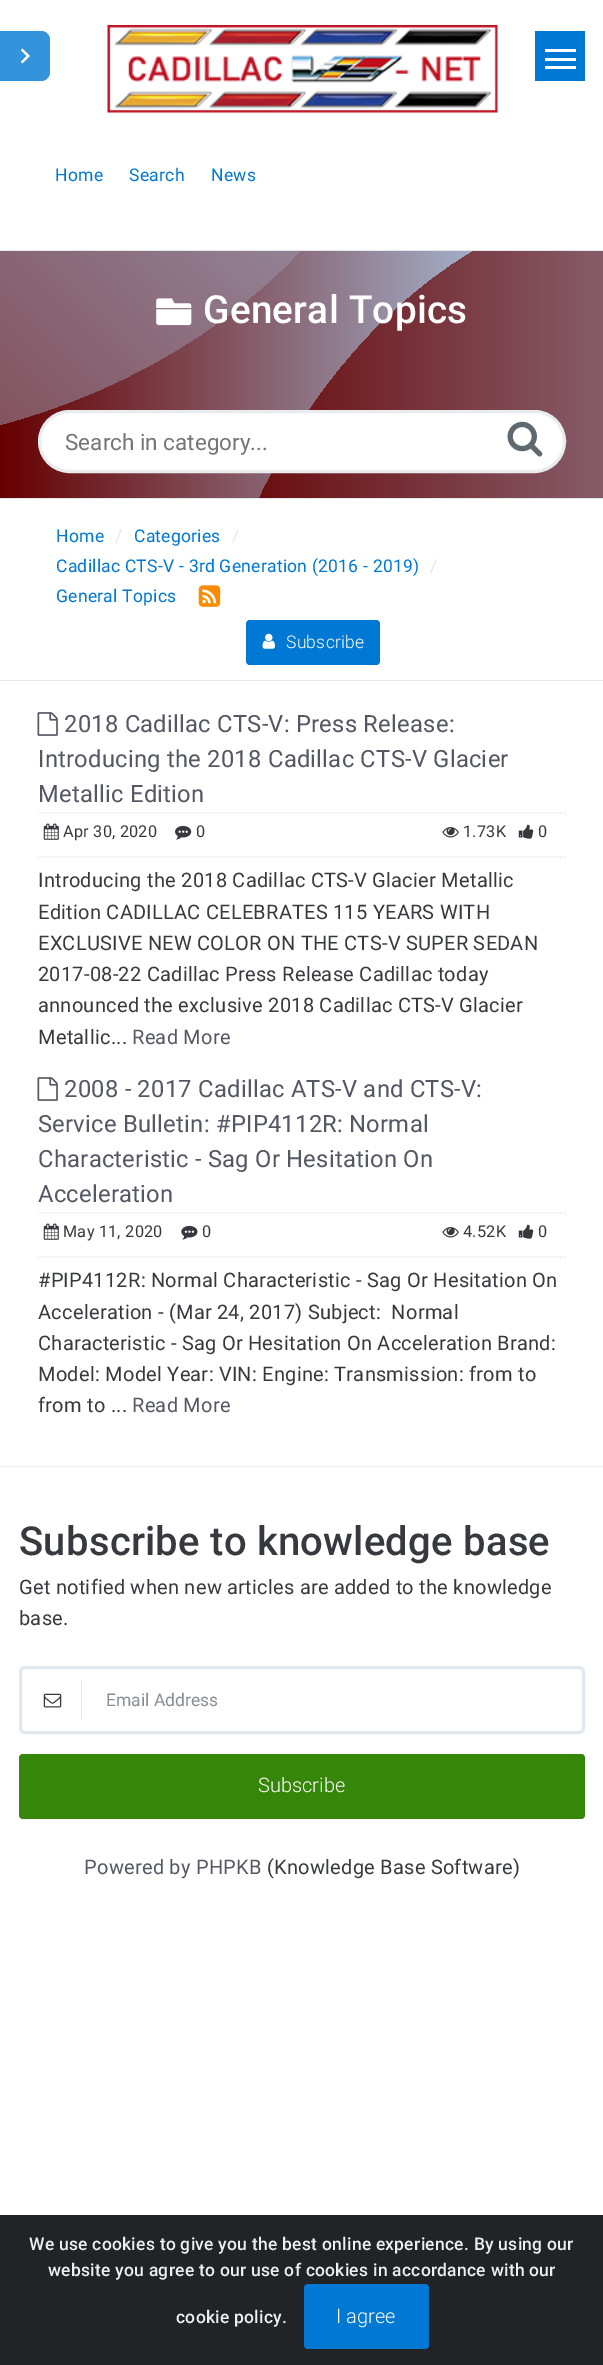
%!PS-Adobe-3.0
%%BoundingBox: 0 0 603 2365
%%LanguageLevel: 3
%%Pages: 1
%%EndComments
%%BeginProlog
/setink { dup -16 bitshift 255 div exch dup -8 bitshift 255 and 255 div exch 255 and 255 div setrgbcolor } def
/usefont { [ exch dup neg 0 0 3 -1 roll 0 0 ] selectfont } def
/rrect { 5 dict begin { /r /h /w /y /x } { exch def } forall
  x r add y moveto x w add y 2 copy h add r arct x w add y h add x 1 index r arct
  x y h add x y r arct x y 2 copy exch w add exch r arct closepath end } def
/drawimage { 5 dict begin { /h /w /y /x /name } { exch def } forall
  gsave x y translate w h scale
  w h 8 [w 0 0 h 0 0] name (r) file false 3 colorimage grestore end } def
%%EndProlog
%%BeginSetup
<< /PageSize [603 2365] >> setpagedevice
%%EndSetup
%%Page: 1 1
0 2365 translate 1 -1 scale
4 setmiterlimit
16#FFFFFF setink
0 0 603 2365 rectfill
(img1.raw) 107 25 391 88 drawimage
[
    [535 31 50 50 16#0078D4]
    [545 58 31 3 16#FFFFFF]
    [545 49 31 3 16#FFFFFF]
    [545 66 31 3 16#FFFFFF]
] { aload pop setink rectfill } forall
/Roboto-Regular 17.5 usefont
16#0078D4 setink
55 181 moveto 0.25 0 (Home) ashow
129 181 moveto 0.25 0 (Search) ashow
211 181 moveto 0.25 0 (News) ashow
gsave 0 251 moveto 474 251 lineto 474 498 lineto 0 498 lineto closepath clip newpath
<< /ShadingType 2 /ColorSpace /DeviceRGB /Coords [0 374 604 374] /Extend [true true] /Function << /FunctionType 2 /Domain [0 1] /C0 [0.4 0 0] /C1 [0.702 0.875 1] /N 1 >> >> shfill grestore
16#E1E8EE setink
0 250 603 1 rectfill
0 498 603 1 rectfill
gsave
0 251 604 247 rectclip
gsave -200 -549 moveto 145 -549 425 -325 425 -49 curveto 425 227 145 451 -200 451 curveto -545 451 -825 227 -825 -49 curveto -825 -325 -545 -549 -200 -549 curveto closepath clip newpath
<< /ShadingType 2 /ColorSpace /DeviceRGB /Coords [-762 514 362 -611] /Extend [true true] /Function << /FunctionType 2 /Domain [0 1] /C0 [0.4 0 0] /C1 [0.702 0.875 1] /N 1 >> >> shfill grestore
gsave 691 189 moveto 967 189 1191 469 1191 814 curveto 1191 1159 967 1439 691 1439 curveto 415 1439 191 1159 191 814 curveto 191 469 415 189 691 189 curveto closepath clip newpath
<< /ShadingType 2 /ColorSpace /DeviceRGB /Coords [191 814 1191 814] /Extend [true true] /Function << /FunctionType 2 /Domain [0 1] /C0 [0.4 0 0] /C1 [0.702 0.875 1] /N 1 >> >> shfill grestore
grestore
(img2.raw) 156 298 36 28 drawimage
/Roboto-Medium 38.75 usefont
16#FFFFFF setink
203 323 moveto 0.25 0 (General Topics) ashow
39.5 411.5 525 60 30 rrect gsave fill grestore
16#E9ECEF setink
3 setlinewidth
stroke
/Roboto-Regular 22.5 usefont
16#757575 setink
65 450 moveto (Search in category...) show
(img3.raw) 507 421 36 36 drawimage
16#E1E8EE setink
0 680 603 1 rectfill
/Roboto-Regular 17.5 usefont
16#0078D4 setink
56 542 moveto 0.25 0 (Home) ashow
16#E1E8EE setink
115 542 moveto 0.25 0 (/) ashow
16#0078D4 setink
134 542 moveto 0.25 0 (Categories) ashow
16#E1E8EE setink
232 542 moveto 0.25 0 (/) ashow
16#0078D4 setink
56 572 moveto 0.25 0 (Cadillac CTS-V - 3rd Generation \(2016 - 2019\)) ashow
16#E1E8EE setink
430 572 moveto 0.25 0 (/) ashow
16#0078D4 setink
56 602 moveto 0.25 0 (General Topics) ashow
(img4.raw) 198 585 23 22 drawimage
246 620 134 45 4 rrect fill
(img5.raw) 262 633 13 16 drawimage
/Roboto-Light 17.5 usefont
16#FFFFFF setink
286 648 moveto 0.25 0 (Subscribe) ashow
16#3394DB setink
0 31 moveto 41 31 lineto 46 31 50 35 50 40 curveto 50 72 lineto 50 77 46 81 41 81 curveto 0 81 lineto closepath fill
(img6.raw) 20 48 10 16 drawimage
(img7.raw) 37 712 21 24 drawimage
/Roboto-Regular 23.75 usefont
16#545764 setink
64 732 moveto 0.25 0 (2018 Cadillac CTS-V: Press Release:) ashow
38 767 moveto 0.25 0 (Introducing the 2018 Cadillac CTS-V Glacier) ashow
38 802 moveto 0.25 0 (Metallic Edition) ashow
16#E1E8EE setink
1.2 setlinewidth
[1.25 1.25] 0 setdash
37.5 813 moveto 566 813 lineto stroke
37.5 857 moveto 566 857 lineto stroke
(img8.raw) 43 823 16 17 drawimage
/Roboto-Regular 16.25 usefont
16#37393E setink
63 837 moveto 0.25 0 (Apr 30, 2020) ashow
(img9.raw) 175 825 17 15 drawimage
196 837 moveto 0.25 0 (0) ashow
(img10.raw) 442 827 17 11 drawimage
463 837 moveto 0.25 0 (1.73K) ashow
(img11.raw) 518 824 16 15 drawimage
538 837 moveto 0.25 0 (0) ashow
/Roboto-Regular 20 usefont
38 887 moveto 0.25 0 (Introducing the 2018 Cadillac CTS-V Glacier Metallic) ashow
38 919 moveto 0.25 0 (Edition CADILLAC CELEBRATES 115 YEARS WITH) ashow
38 950 moveto 0.25 0 (EXCLUSIVE NEW COLOR ON THE CTS-V SUPER SEDAN) ashow
38 981 moveto 0.25 0 (2017-08-22 Cadillac Press Release Cadillac today) ashow
38 1012 moveto 0.25 0 (announced the exclusive 2018 Cadillac CTS-V Glacier) ashow
38 1044 moveto 0.25 0 (Metallic...) ashow
16#545764 setink
132 1044 moveto 0.25 0 (Read More) ashow
(img7.raw) 37 1077 21 24 drawimage
/Roboto-Regular 23.75 usefont
64 1097 moveto 0.25 0 (2008 - 2017 Cadillac ATS-V and CTS-V:) ashow
38 1132 moveto 0.25 0 (Service Bulletin: #PIP4112R: Normal) ashow
38 1167 moveto 0.25 0 (Characteristic - Sag Or Hesitation On) ashow
38 1202 moveto 0.25 0 (Acceleration) ashow
16#E1E8EE setink
37.5 1213 moveto 566 1213 lineto stroke
37.5 1257 moveto 566 1257 lineto stroke
(img8.raw) 43 1223 16 17 drawimage
/Roboto-Regular 16.25 usefont
16#37393E setink
63 1237 moveto 0.25 0 (May 11, 2020) ashow
(img12.raw) 181 1225 17 15 drawimage
202 1237 moveto 0.25 0 (0) ashow
(img10.raw) 442 1227 17 11 drawimage
463 1237 moveto 0.25 0 (4.52K) ashow
(img11.raw) 518 1224 16 15 drawimage
538 1237 moveto 0.25 0 (0) ashow
/Roboto-Regular 20 usefont
38 1287 moveto 0.25 0 (#PIP4112R: Normal Characteristic - Sag Or Hesitation On) ashow
38 1319 moveto 0.25 0 (Acceleration - \(Mar 24, 2017\) Subject:  Normal) ashow
38 1350 moveto 0.25 0 (Characteristic - Sag Or Hesitation On Acceleration Brand:) ashow
38 1381 moveto 0.25 0 (Model: Model Year: VIN: Engine: Transmission: from to) ashow
38 1412 moveto 0.25 0 (from to ...) ashow
16#545764 setink
132 1412 moveto 0.25 0 (Read More) ashow
16#EEEEEE setink
0 1466 603 1 rectfill
/Roboto-Medium 40 usefont
16#37393E setink
19 1555 moveto 0.25 0 (Subscribe to knowledge base) ashow
/Roboto-Regular 20 usefont
19 1594 moveto 0.25 0 (Get notified when new articles are added to the knowledge) ashow
19 1625 moveto 0.25 0 (base.) ashow
16#E1E8EE setink
3 setlinewidth
[] 0 setdash
20.5 1667.5 563 65 4.5 rrect stroke
(img13.raw) 43 1693 19 15 drawimage
81 1681 1 38 rectfill
/Roboto-Regular 17.5 usefont
16#868E96 setink
106 1706 moveto (Email Address) show
16#358609 setink
19 1754 566 65 4 rrect fill
/Roboto-Light 20 usefont
16#FFFFFF setink
258 1792 moveto (Subscribe) show
/Roboto-Regular 20 usefont
16#545764 setink
84 1874 moveto 0.25 0 (Powered by PHPKB) ashow
16#37393E setink
267 1874 moveto 0.25 0 (\(Knowledge Base Software\)) ashow
16#212327 setink
0 2215 603 150 rectfill
/Roboto-Medium 17.5 usefont
16#ECF0F1 setink
29 2250 moveto 0.25 0 (We use cookies to give you the best online experience. By using our) ashow
48 2276 moveto 0.25 0 (website you agree to our use of cookies in accordance with our) ashow
176 2323 moveto 0.25 0 (cookie policy.) ashow
16#0078D4 setink
304 2284 125 65 4 rrect fill
/Roboto-Light 20 usefont
16#FFFFFF setink
336 2323 moveto (I agree) show
showpage
%%EOF
